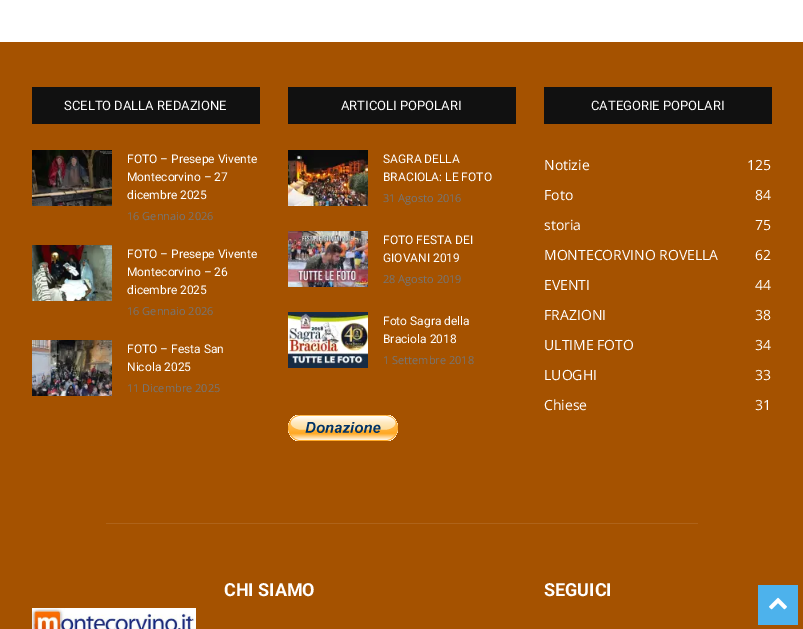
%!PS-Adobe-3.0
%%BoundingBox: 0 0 803 629
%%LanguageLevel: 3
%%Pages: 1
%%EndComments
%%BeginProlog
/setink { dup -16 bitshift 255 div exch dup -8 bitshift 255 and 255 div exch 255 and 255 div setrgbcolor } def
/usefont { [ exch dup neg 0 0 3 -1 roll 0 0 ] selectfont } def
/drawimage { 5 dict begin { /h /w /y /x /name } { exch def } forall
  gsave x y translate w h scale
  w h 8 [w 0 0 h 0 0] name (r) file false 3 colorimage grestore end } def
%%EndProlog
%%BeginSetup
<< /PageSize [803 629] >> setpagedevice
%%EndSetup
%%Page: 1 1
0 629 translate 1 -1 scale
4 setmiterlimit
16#FFFFFF setink
0 0 803 629 rectfill
16#A55200 setink
0 42 803 587 rectfill
16#111111 setink
32 87 228 37 rectfill
/Roboto-Regular 13 usefont
16#FFFFFF setink
64 110 moveto (SCELTO DALLA REDAZIONE) show
(img1.raw) 32 150 80 56 drawimage
/Roboto-Regular 12 usefont
[
    [(FOTO – Presepe Vivente) 127 163]
    [(Montecorvino – 27) 127 181]
    [(dicembre 2025) 127 199]
] { aload pop moveto show } forall
/OpenSans-Regular 11 usefont
16#767676 setink
127 220 moveto (16 Gennaio 2026) show
(img2.raw) 32 245 80 56 drawimage
/Roboto-Regular 12 usefont
16#FFFFFF setink
[
    [(FOTO – Presepe Vivente) 127 258]
    [(Montecorvino – 26) 127 276]
    [(dicembre 2025) 127 294]
] { aload pop moveto show } forall
/OpenSans-Regular 11 usefont
16#767676 setink
127 315 moveto (16 Gennaio 2026) show
(img3.raw) 32 340 80 56 drawimage
/Roboto-Regular 12 usefont
16#FFFFFF setink
127 353 moveto (FOTO – Festa San) show
127 371 moveto (Nicola 2025) show
/OpenSans-Regular 11 usefont
16#767676 setink
127 392 moveto (11 Dicembre 2025) show
16#111111 setink
288 87 228 37 rectfill
/Roboto-Regular 13 usefont
16#FFFFFF setink
341 110 moveto (ARTICOLI POPOLARI) show
(img4.raw) 288 150 80 56 drawimage
/Roboto-Regular 12 usefont
383 163 moveto (SAGRA DELLA) show
383 181 moveto (BRACIOLA: LE FOTO) show
/OpenSans-Regular 11 usefont
16#767676 setink
383 202 moveto (31 Agosto 2016) show
(img5.raw) 288 231 80 56 drawimage
/Roboto-Regular 12 usefont
16#FFFFFF setink
383 244 moveto (FOTO FESTA DEI) show
383 262 moveto (GIOVANI 2019) show
/OpenSans-Regular 11 usefont
16#767676 setink
383 283 moveto (28 Agosto 2019) show
(img6.raw) 288 312 80 56 drawimage
/Roboto-Regular 12 usefont
16#FFFFFF setink
383 325 moveto (Foto Sagra della) show
383 343 moveto (Braciola 2018) show
/OpenSans-Regular 11 usefont
16#767676 setink
383 364 moveto (1 Settembre 2018) show
(img7.raw) 288 415 110 26 drawimage
16#111111 setink
544 87 228 37 rectfill
/Roboto-Regular 13 usefont
16#FFFFFF setink
591 110 moveto (CATEGORIE POPOLARI) show
/OpenSans-Regular 14 usefont
[
    [(Notizie) 544 170]
    [(125) 747 170]
    [(Foto) 544 200]
    [(84) 755 200]
    [(storia) 544 230]
    [(75) 755 230]
    [(MONTECORVINO ROVELLA) 544 260]
    [(62) 755 260]
    [(EVENTI) 544 290]
    [(44) 755 290]
    [(FRAZIONI) 544 320]
    [(38) 755 320]
    [(ULTIME FOTO) 544 350]
    [(34) 755 350]
    [(LUOGHI) 544 380]
    [(33) 755 380]
    [(Chiese) 544 410]
    [(31) 755 410]
] { aload pop moveto show } forall
16#AE631A setink
106 523 592 1 rectfill
/Roboto-Bold 18 usefont
16#FFFFFF setink
224 596 moveto (CHI SIAMO) show
544 596 moveto (SEGUICI) show
(img8.raw) 32 608 164 21 drawimage
16#4DB2EC setink
758 585 40 40 rectfill
(img9.raw) 769 597 18 13 drawimage
showpage
%%EOF
